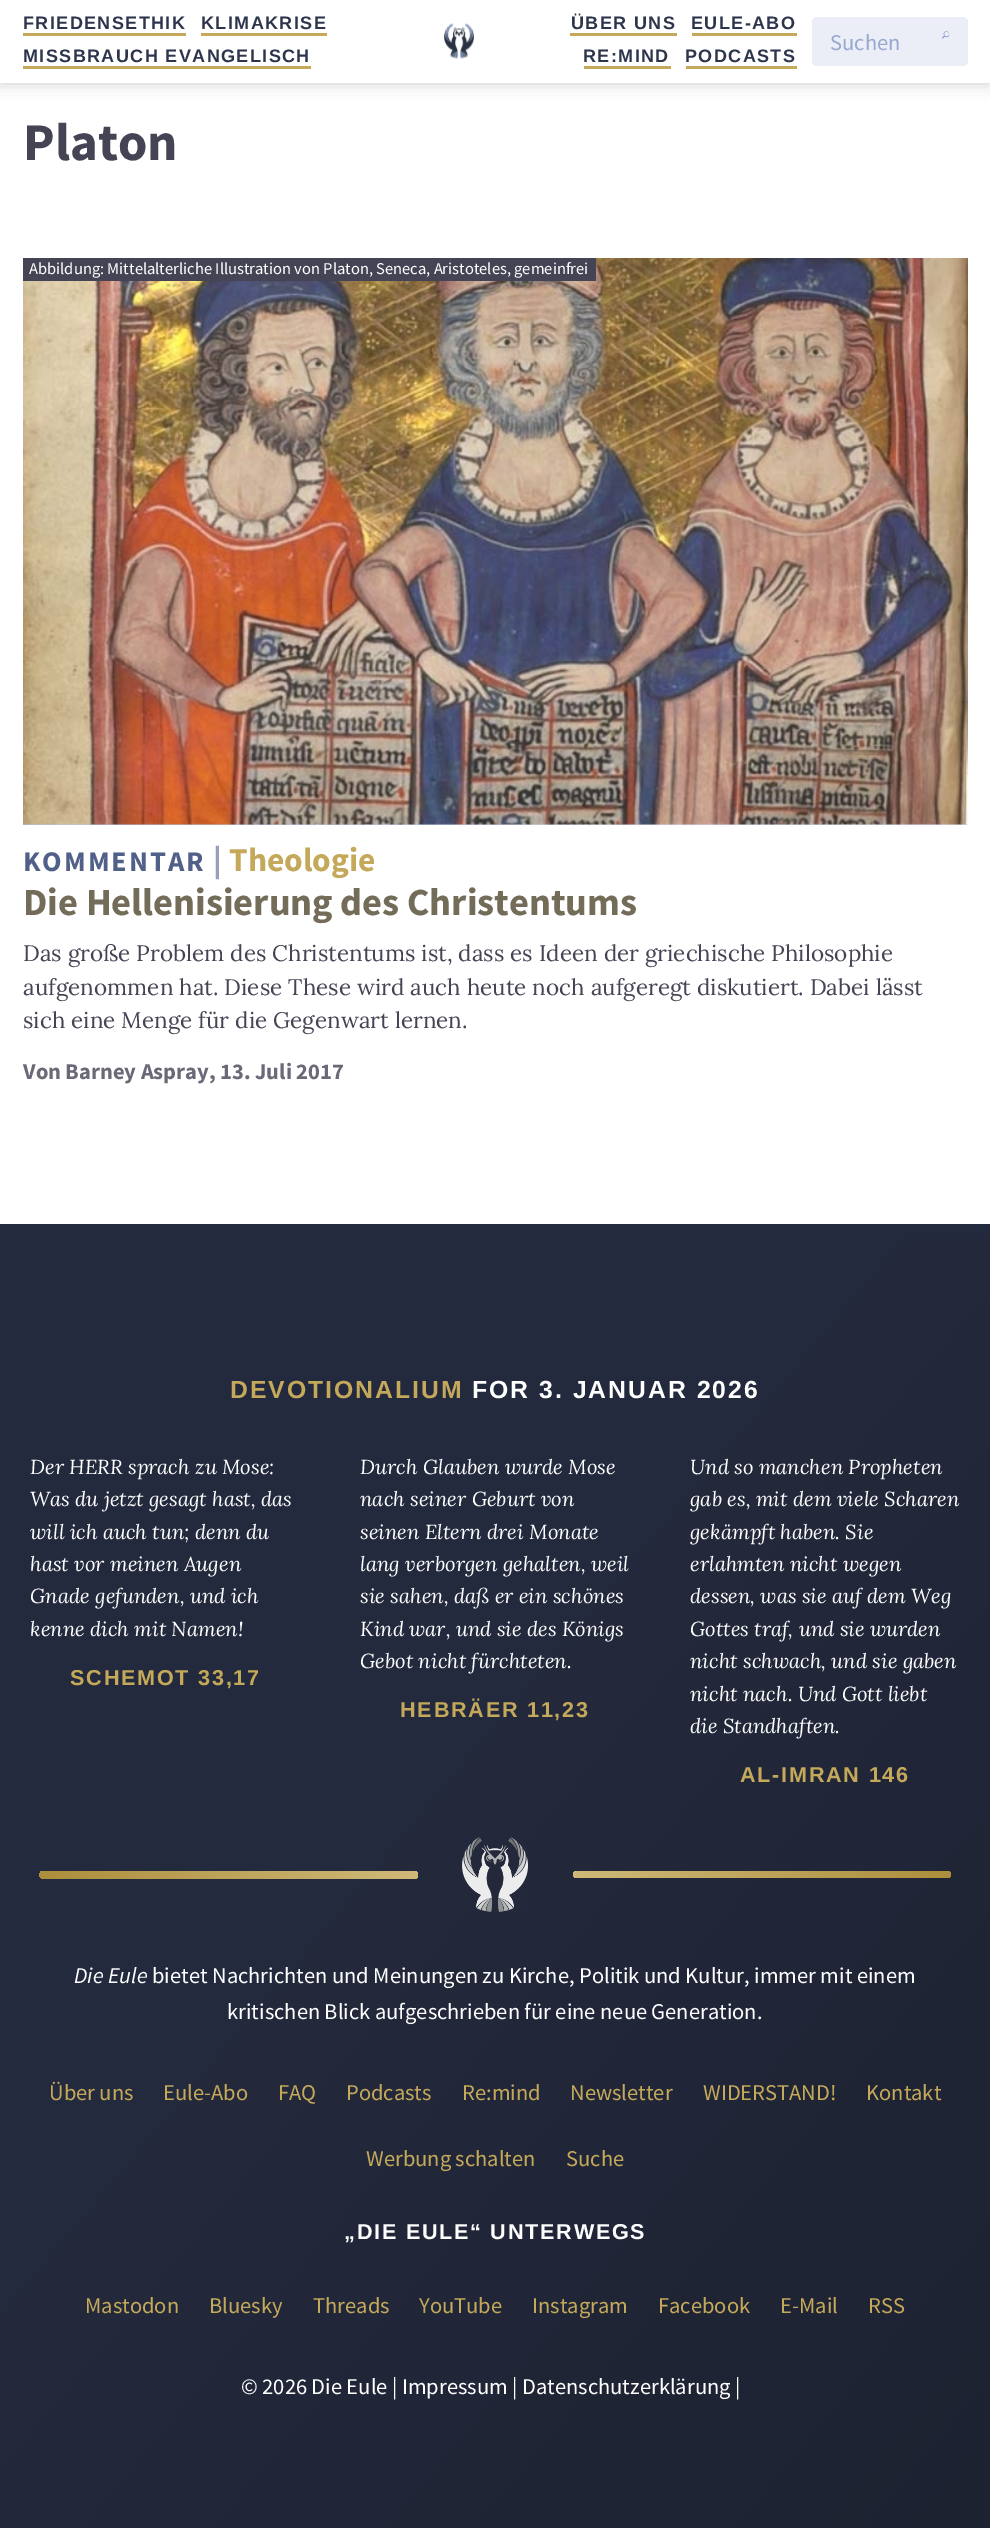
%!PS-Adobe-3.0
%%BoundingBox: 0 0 990 2528
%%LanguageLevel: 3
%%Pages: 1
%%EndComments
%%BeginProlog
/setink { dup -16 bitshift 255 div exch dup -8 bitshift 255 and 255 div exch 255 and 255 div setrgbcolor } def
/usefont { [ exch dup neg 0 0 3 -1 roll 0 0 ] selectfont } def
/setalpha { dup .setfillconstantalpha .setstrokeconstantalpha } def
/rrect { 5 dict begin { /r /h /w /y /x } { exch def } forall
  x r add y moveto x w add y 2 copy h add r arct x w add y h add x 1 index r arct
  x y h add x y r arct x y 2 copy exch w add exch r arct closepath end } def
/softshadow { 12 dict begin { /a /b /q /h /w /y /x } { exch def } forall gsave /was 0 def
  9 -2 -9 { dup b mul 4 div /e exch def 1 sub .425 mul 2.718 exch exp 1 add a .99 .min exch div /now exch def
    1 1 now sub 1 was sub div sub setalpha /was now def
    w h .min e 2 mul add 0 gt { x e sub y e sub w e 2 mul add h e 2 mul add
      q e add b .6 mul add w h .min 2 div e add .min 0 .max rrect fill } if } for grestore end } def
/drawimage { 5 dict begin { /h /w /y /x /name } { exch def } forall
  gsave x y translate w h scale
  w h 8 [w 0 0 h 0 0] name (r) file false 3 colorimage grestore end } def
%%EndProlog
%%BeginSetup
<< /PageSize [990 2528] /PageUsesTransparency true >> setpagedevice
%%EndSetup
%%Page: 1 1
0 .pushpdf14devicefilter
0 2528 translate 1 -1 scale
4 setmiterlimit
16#FFFFFF setink
0 0 990 2528 rectfill
16#000000 setink
0 0 990 83 0 7.5 0.2 softshadow
16#FFFFFF setink
0 0 990 83 rectfill
/LiberationSans-Bold 18 usefont
16#2D354C setink
23 29 moveto 1.4 0 (FRIEDENSETHIK) ashow
16#C5A95A setink
23 33 163 3 rectfill
16#2D354C setink
201 29 moveto 1.4 0 (KLIMAKRISE) ashow
16#C5A95A setink
201 33 126 3 rectfill
16#2D354C setink
23 62 moveto 1.4 0 (MISSBRAUCH EVANGELISCH) ashow
16#C5A95A setink
23 66 288 3 rectfill
(img1.raw) 444 23 30 36 drawimage
16#2D354C setink
571 29 moveto 1.4 0 (ÜBER UNS) ashow
16#C5A95A setink
570 33 107 3 rectfill
16#2D354C setink
691 29 moveto 1.4 0 (EULE-ABO) ashow
16#C5A95A setink
692 33 105 3 rectfill
16#2D354C setink
583 62 moveto 1.4 0 (RE:MIND) ashow
16#C5A95A setink
584 66 87 3 rectfill
16#2D354C setink
685 62 moveto 1.4 0 (PODCASTS) ashow
16#C5A95A setink
686 66 111 3 rectfill
16#EBEEF6 setink
812 17 156 49 5 rrect fill
/SourceSansPro-Regular 22.5 usefont
16#98A8D1 setink
830 50 moveto (Suchen) show
(img2.raw) 942 31 8 8 drawimage
/SourceSansPro-Bold 53 usefont
16#444455 setink
23 160 moveto (Platon) show
gsave 23 823 moveto 968 823 lineto 968 825 lineto 23 825 lineto closepath clip newpath
<< /ShadingType 2 /ColorSpace /DeviceRGB /Coords [117 920 873 164] /Extend [true true] /Function << /FunctionType 2 /Domain [0 1] /C0 [0.725 0.769 0.878] /C1 [0.933 0.945 0.969] /N 1 >> >> shfill grestore
(img3.raw) 23 258 945 567 drawimage
23 258 573 23 rectfill
/SourceSansPro-Regular 16.5 usefont
16#FFFFFF setink
29 274 moveto (Abbildung: Mittelalterliche Illustration von Platon, Seneca, Aristoteles, gemeinfrei) show
/SourceSansPro-Bold 28.5 usefont
16#516089 setink
23 871 moveto 2 0 (KOMMENTAR) ashow
/SourceSansPro-Bold 33.5 usefont
16#97A0B8 setink
213 871 moveto (|) show
16#C5A95A setink
229 871 moveto (Theologie) show
/SourceSansPro-Bold 38.4 usefont
16#736C58 setink
23 915 moveto (Die Hellenisierung des Christentums) show
/Lora-Regular 22.5 usefont
16#444455 setink
[
    [(Das große Problem des Christentums ist, dass es Ideen der griechische Philosophie) 23 961]
    [(aufgenommen hat. Diese These wird auch heute noch aufgeregt diskutiert. Dabei lässt) 23 995]
    [(sich eine Menge für die Gegenwart lernen.) 23 1028]
] { aload pop moveto show } forall
/SourceSansPro-Bold 22.5 usefont
16#696977 setink
23 1079 moveto (Von Barney Aspray, 13. Juli 2017) show
gsave 0 1239 moveto 990 1239 lineto 990 2528 lineto 0 2528 lineto closepath clip newpath
<< /ShadingType 2 /ColorSpace /DeviceRGB /Coords [-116 1377 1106 2402] /Extend [true true] /Function << /FunctionType 3 /Domain [0 1] /Functions [<< /FunctionType 2 /Domain [0 1] /C0 [0.141 0.165 0.239] /C1 [0.141 0.165 0.239] /N 1 >> << /FunctionType 2 /Domain [0 1] /C0 [0.141 0.165 0.239] /C1 [0.114 0.133 0.192] /N 1 >>] /Bounds [0.4] /Encode [0 1 0 1] >> >> shfill grestore
16#242A3D setink
0 1224 990 15 rectfill
/LiberationSans-Bold 24.75 usefont
16#C5A95A setink
230 1398 moveto 2 0 (DEVOTIONALIUM) ashow
16#FFFFFF setink
472 1398 moveto 2 0 (FOR 3. JANUAR 2026) ashow
/Lora-Italic 20.25 usefont
[
    [(Der HERR sprach zu Mose:) 30 1474]
    [(Was du jetzt gesagt hast, das) 30 1506]
    [(will ich auch tun; denn du) 30 1539]
    [(hast vor meinen Augen) 30 1571]
    [(Gnade gefunden, und ich) 30 1603]
    [(kenne dich mit Namen!) 30 1636]
] { aload pop moveto show } forall
/LiberationSans-Bold 21.6 usefont
16#C5A95A setink
70 1685 moveto 1.75 0 (SCHEMOT 33,17) ashow
/Lora-Italic 20.25 usefont
16#FFFFFF setink
[
    [(Durch Glauben wurde Mose) 360 1474]
    [(nach seiner Geburt von) 360 1506]
    [(seinen Eltern drei Monate) 360 1539]
    [(lang verborgen gehalten, weil) 360 1571]
    [(sie sahen, daß er ein schönes) 360 1603]
    [(Kind war, und sie des Königs) 360 1636]
    [(Gebot nicht fürchteten.) 360 1668]
] { aload pop moveto show } forall
/LiberationSans-Bold 21.6 usefont
16#C5A95A setink
400 1717 moveto 1.75 0 (HEBRÄER 11,23) ashow
/Lora-Italic 20.25 usefont
16#FFFFFF setink
[
    [(Und so manchen Propheten) 690 1474]
    [(gab es, mit dem viele Scharen) 690 1506]
    [(gekämpft haben. Sie) 690 1539]
    [(erlahmten nicht wegen) 690 1571]
    [(dessen, was sie auf dem Weg) 690 1603]
    [(Gottes traf, und sie wurden) 690 1636]
    [(nicht schwach, und sie gaben) 690 1668]
    [(nicht nach. Und Gott liebt) 690 1701]
    [(die Standhaften.) 690 1733]
] { aload pop moveto show } forall
/LiberationSans-Bold 21.6 usefont
16#C5A95A setink
740 1782 moveto 1.75 0 (AL-IMRAN 146) ashow
gsave 414 1879 moveto 43 1879 lineto 41 1878 lineto 38 1875 40 1871 43 1871 curveto 414 1871 lineto 419 1871 419 1879 414 1879 curveto closepath clip newpath
<< /ShadingType 2 /ColorSpace /DeviceRGB /Coords [325 1779 132 1971] /Extend [true true] /Function << /FunctionType 2 /Domain [0 1] /C0 [0.816 0.725 0.475] /C1 [0.675 0.557 0.235] /N 1 >> >> shfill grestore
(img4.raw) 462 1837 66 75 drawimage
gsave 573 1871 378 7 3.5 rrect clip newpath
<< /ShadingType 2 /ColorSpace /DeviceRGB /Coords [666 1971 858 1778] /Extend [true true] /Function << /FunctionType 2 /Domain [0 1] /C0 [0.816 0.725 0.475] /C1 [0.675 0.557 0.235] /N 1 >> >> shfill grestore
/SourceSansPro-Italic 22.5 usefont
16#FFFFFF setink
74 1983 moveto (Die Eule) show
/SourceSansPro-Regular 22.5 usefont
152 1983 moveto (bietet Nachrichten und Meinungen zu Kirche, Politik und Kultur, immer mit einem) show
227 2019 moveto (kritischen Blick aufgeschrieben für eine neue Generation.) show
16#C5A95A setink
[
    [(Über uns) 49 2100]
    [(Eule-Abo) 163 2100]
    [(FAQ) 278 2100]
    [(Podcasts) 346 2100]
    [(Re:mind) 462 2100]
    [(Newsletter) 570 2100]
    [(WIDERSTAND!) 703 2100]
    [(Kontakt) 866 2100]
    [(Werbung schalten) 366 2166]
    [(Suche) 566 2166]
] { aload pop moveto show } forall
/LiberationSans-Bold 21.6 usefont
16#FFFFFF setink
344 2239 moveto 1.75 0 („DIE EULE“ UNTERWEGS) ashow
/SourceSansPro-Regular 22.5 usefont
16#C5A95A setink
[
    [(Mastodon) 85 2313]
    [(Bluesky) 209 2313]
    [(Threads) 313 2313]
    [(YouTube) 419 2313]
    [(Instagram) 532 2313]
    [(Facebook) 658 2313]
    [(E-Mail) 780 2313]
    [(RSS) 868 2313]
] { aload pop moveto show } forall
16#FFFFFF setink
241 2394 moveto (© 2026 Die Eule | Impressum | Datenschutzerklärung |) show
.poppdf14devicefilter showpage
%%EOF
